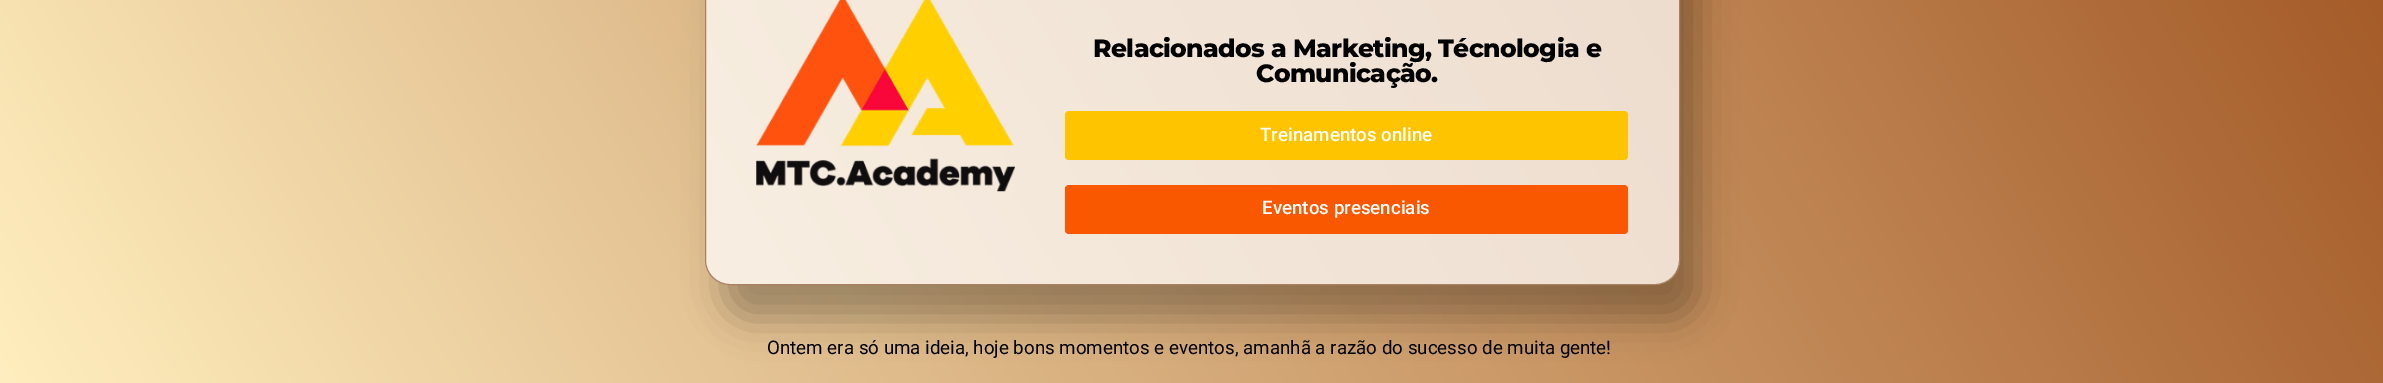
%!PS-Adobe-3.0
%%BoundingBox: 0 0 2383 383
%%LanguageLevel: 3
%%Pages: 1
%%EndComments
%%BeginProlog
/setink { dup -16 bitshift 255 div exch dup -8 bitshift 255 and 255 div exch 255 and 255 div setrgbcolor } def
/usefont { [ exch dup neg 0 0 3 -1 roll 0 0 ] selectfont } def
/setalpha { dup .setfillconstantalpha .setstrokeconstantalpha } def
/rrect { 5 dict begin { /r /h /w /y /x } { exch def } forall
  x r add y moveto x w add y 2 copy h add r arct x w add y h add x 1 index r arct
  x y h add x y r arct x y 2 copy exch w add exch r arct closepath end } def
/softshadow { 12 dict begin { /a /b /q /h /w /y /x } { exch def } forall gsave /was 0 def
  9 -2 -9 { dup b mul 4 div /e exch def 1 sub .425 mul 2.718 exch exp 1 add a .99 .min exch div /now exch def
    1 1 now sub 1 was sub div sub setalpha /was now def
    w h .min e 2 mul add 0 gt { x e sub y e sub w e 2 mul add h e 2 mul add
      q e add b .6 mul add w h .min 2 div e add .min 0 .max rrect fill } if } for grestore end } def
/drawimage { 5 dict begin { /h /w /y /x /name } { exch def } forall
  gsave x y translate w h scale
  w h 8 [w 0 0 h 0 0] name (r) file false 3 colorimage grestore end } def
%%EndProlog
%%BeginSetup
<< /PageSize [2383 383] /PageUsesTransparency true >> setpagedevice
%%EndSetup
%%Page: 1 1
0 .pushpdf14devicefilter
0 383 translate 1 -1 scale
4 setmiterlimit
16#FFFFFF setink
0 0 2383 383 rectfill
gsave 0 0 moveto 2383 0 lineto 2383 383 lineto 0 383 lineto closepath clip newpath
<< /ShadingType 2 /ColorSpace /DeviceRGB /Coords [2169 -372 215 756] /Extend [true true] /Function << /FunctionType 2 /Domain [0 1] /C0 [0.647 0.361 0.161] /C1 [1 0.933 0.749] /N 1 >> >> shfill grestore
gsave
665 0 moveto 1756 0 lineto 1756 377 lineto 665 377 lineto closepath 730 -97 moveto 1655 -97 lineto 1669 -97 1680 -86 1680 -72 curveto 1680 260 lineto 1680 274 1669 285 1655 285 curveto 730 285 lineto 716 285 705 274 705 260 curveto 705 -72 lineto 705 -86 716 -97 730 -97 curveto closepath eoclip newpath
16#000000 setink
723 -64 975 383 25 19 0.3 softshadow
grestore
0.72 setalpha
705.5 -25.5 974 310 24.5 rrect fill
1 setalpha
16#A98061 setink
705.5 -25.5 974 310 24.5 rrect stroke
(img1.raw) 756 0 259 192 drawimage
/Montserrat-ExtraBold 25 usefont
16#000000 setink
1093 57 moveto -0.6 0 (Relacionados a Marketing, Técnologia e) ashow
1256 82 moveto -0.6 0 (Comunicação.) ashow
16#FFC400 setink
1065 111 563 49 4 rrect fill
/Roboto-Medium 18.75 usefont
16#FFFFFF setink
1260 141 moveto (Treinamentos online) show
16#FA5800 setink
1065 185 563 49 4 rrect fill
16#FFFFFF setink
1262 214 moveto (Eventos presenciais) show
/Roboto-Regular 18.75 usefont
16#000000 setink
767 354 moveto (Ontem era só uma ideia, hoje bons momentos e eventos, amanhã a razão do sucesso de muita gente!) show
.poppdf14devicefilter showpage
%%EOF
